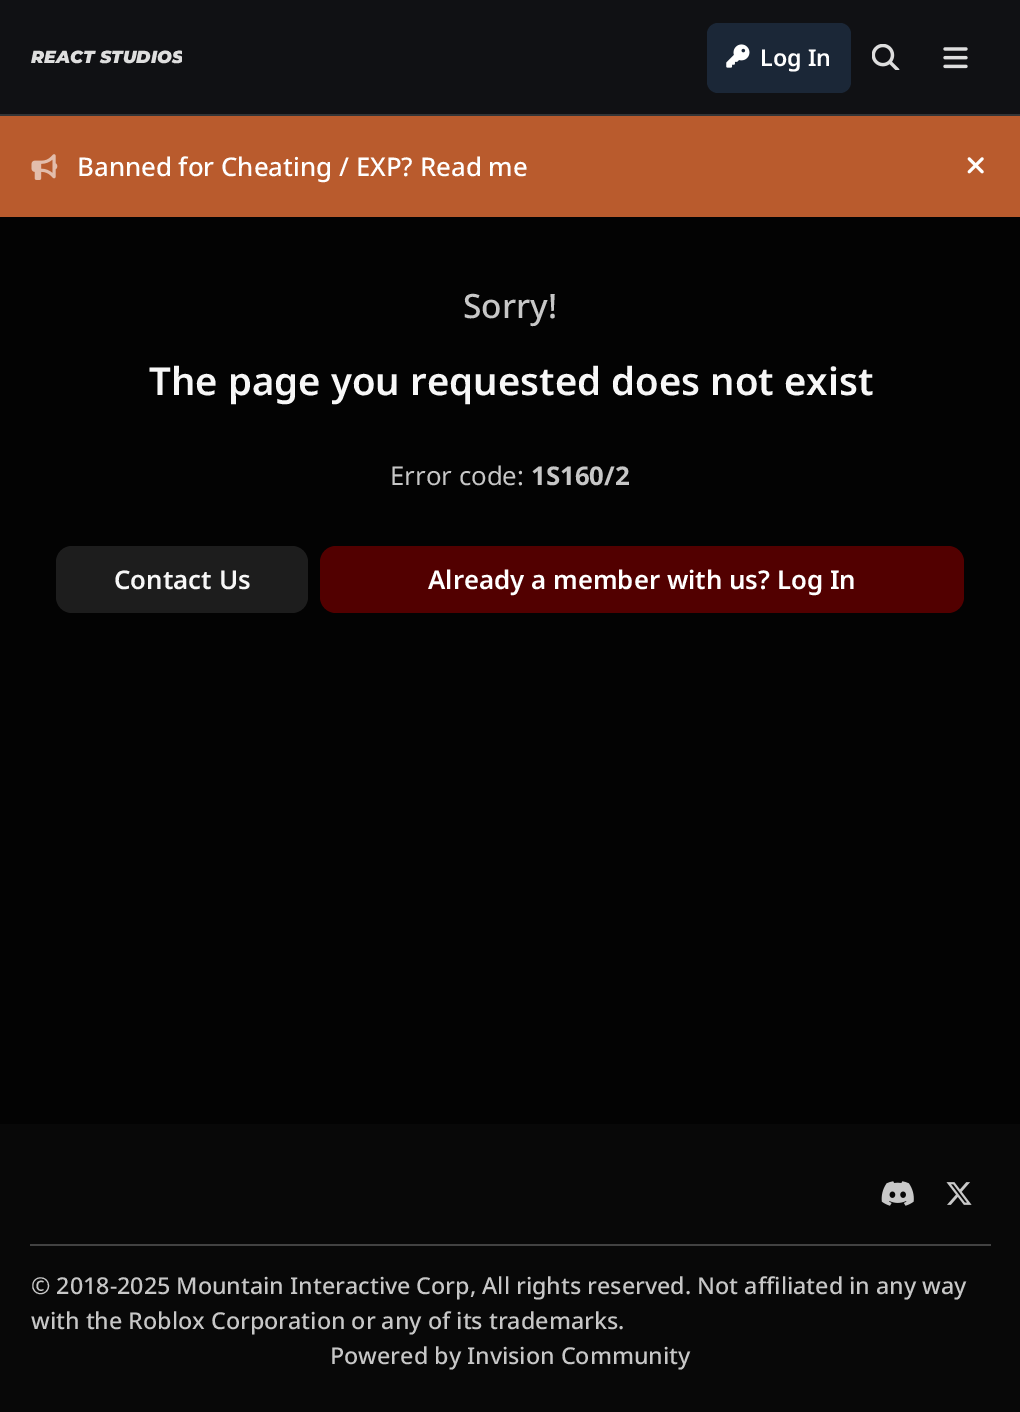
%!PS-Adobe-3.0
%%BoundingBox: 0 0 1020 1412
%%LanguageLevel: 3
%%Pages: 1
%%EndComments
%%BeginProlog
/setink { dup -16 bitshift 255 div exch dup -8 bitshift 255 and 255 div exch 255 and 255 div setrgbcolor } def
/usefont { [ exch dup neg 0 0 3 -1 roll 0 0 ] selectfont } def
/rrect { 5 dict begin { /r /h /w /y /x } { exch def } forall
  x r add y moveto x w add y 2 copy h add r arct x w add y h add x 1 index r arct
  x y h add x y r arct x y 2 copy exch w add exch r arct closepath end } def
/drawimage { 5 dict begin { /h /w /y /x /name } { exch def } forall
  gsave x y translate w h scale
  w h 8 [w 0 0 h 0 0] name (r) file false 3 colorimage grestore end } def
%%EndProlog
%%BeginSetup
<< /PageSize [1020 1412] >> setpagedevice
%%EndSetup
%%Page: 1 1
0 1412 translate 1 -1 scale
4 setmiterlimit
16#030303 setink
0 0 1020 1412 rectfill
16#101114 setink
0 0 1020 114 rectfill
16#343537 setink
0 114 1020 2 rectfill
gsave
30 0 152 116 rectclip
/Montserrat-BlackItalic 17.5 usefont
16#DEDEDE setink
31 63 moveto (REACT STUDIOS) show
grestore
16#1B2737 setink
707 23 144 70 11 rrect fill
(img1.raw) 726 44 24 24 drawimage
/NotoSans-SemiBold 23.25 usefont
16#FFFFFF setink
760 66 moveto (Log In) show
(img2.raw) 872 44 28 26 drawimage
(img3.raw) 943 47 25 22 drawimage
16#B95B2D setink
0 116 1020 101 rectfill
(img4.raw) 31 154 27 26 drawimage
/NotoSans-Medium 25.8 usefont
16#FFFFFF setink
77 176 moveto (Banned for Cheating / EXP? Read me) show
(img5.raw) 967 157 17 17 drawimage
/NotoSans-Medium 33.5 usefont
16#C7C7C7 setink
463 318 moveto (Sorry!) show
/NotoSans-SemiBold 38.4 usefont
16#F7F7F7 setink
149 395 moveto (The page you requested does not exist) show
/NotoSans-Regular 25.8 usefont
16#C7C7C7 setink
390 485 moveto (Error code:) show
/NotoSans-Bold 25.8 usefont
531 485 moveto (1S160/2) show
16#1D1D1D setink
56 546 252 67 16 rrect fill
/NotoSans-SemiBold 25.8 usefont
16#F7F7F7 setink
114 589 moveto (Contact Us) show
16#520000 setink
320 546 644 67 16 rrect fill
16#FFFFFF setink
428 589 moveto (Already a member with us? Log In) show
16#080808 setink
0 1124 1020 288 rectfill
(img6.raw) 881 1181 33 25 drawimage
(img7.raw) 946 1182 26 23 drawimage
16#424242 setink
30 1244 961 2 rectfill
/NotoSans-Medium 23.25 usefont
16#C7C7C7 setink
[
    [(© 2018-2025 Mountain Interactive Corp, All rights reserved. Not affiliated in any way) 31 1294]
    [(with the Roblox Corporation or any of its trademarks.) 31 1329]
    [(Powered by Invision Community) 330 1364]
] { aload pop moveto show } forall
showpage
%%EOF
